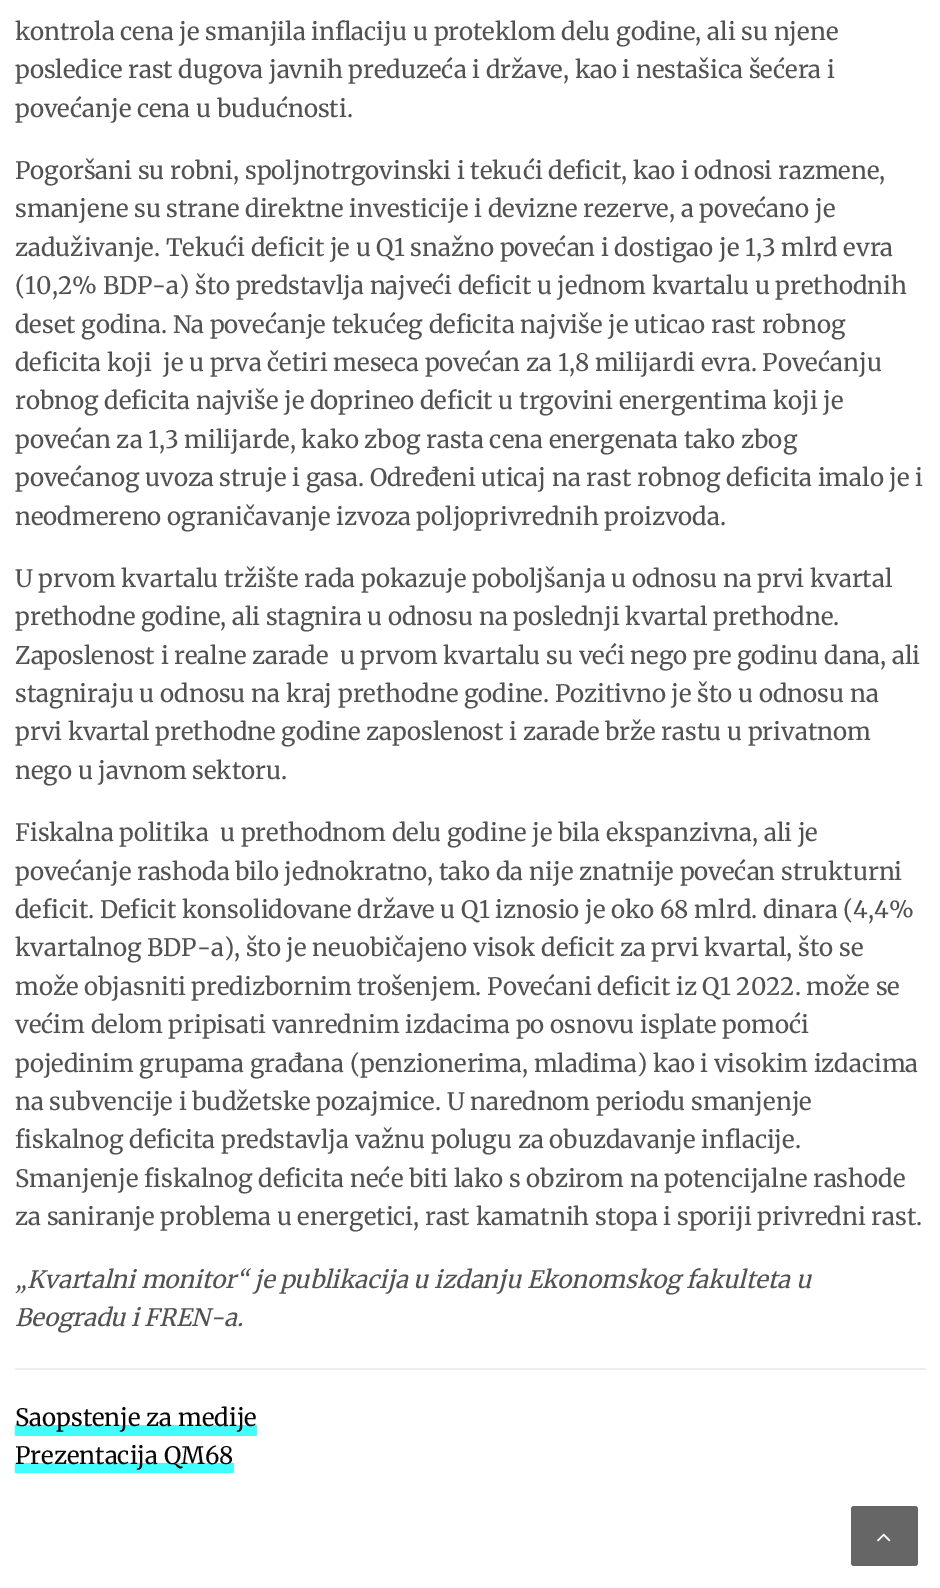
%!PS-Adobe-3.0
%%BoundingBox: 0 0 940 1588
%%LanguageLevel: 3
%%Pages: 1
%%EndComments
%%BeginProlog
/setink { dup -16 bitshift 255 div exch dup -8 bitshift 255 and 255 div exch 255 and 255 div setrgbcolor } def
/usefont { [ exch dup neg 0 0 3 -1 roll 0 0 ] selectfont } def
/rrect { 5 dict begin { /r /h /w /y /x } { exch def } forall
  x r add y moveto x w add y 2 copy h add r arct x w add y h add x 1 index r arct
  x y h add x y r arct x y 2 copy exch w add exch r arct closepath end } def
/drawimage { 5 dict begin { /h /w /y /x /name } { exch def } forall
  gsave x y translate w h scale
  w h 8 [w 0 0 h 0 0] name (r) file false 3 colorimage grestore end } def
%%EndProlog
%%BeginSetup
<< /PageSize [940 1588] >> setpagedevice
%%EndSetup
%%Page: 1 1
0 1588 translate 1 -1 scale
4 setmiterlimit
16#FFFFFF setink
0 0 940 1588 rectfill
/Merriweather-Regular 24 usefont
16#525252 setink
[
    [(kontrola cena je smanjila inflaciju u proteklom delu godine, ali su njene) 15 40]
    [(posledice rast dugova javnih preduzeća i države, kao i nestašica šećera i) 15 78]
    [(povećanje cena u budućnosti.) 15 117]
    [(Pogoršani su robni, spoljnotrgovinski i tekući deficit, kao i odnosi razmene,) 15 179]
    [(smanjene su strane direktne investicije i devizne rezerve, a povećano je) 15 217]
    [(zaduživanje. Tekući deficit je u Q1 snažno povećan i dostigao je 1,3 mlrd evra) 15 256]
    [(\(10,2% BDP-a\) što predstavlja najveći deficit u jednom kvartalu u prethodnih) 15 294]
    [(deset godina. Na povećanje tekućeg deficita najviše je uticao rast robnog) 15 333]
    [(deficita koji  je u prva četiri meseca povećan za 1,8 milijardi evra. Povećanju) 15 371]
    [(robnog deficita najviše je doprineo deficit u trgovini energentima koji je) 15 409]
    [(povećan za 1,3 milijarde, kako zbog rasta cena energenata tako zbog) 15 448]
    [(povećanog uvoza struje i gasa. Određeni uticaj na rast robnog deficita imalo je i) 15 486]
    [(neodmereno ograničavanje izvoza poljoprivrednih proizvoda.) 15 525]
    [(U prvom kvartalu tržište rada pokazuje poboljšanja u odnosu na prvi kvartal) 15 587]
    [(prethodne godine, ali stagnira u odnosu na poslednji kvartal prethodne.) 15 625]
    [(Zaposlenost i realne zarade  u prvom kvartalu su veći nego pre godinu dana, ali) 15 664]
    [(stagniraju u odnosu na kraj prethodne godine. Pozitivno je što u odnosu na) 15 702]
    [(prvi kvartal prethodne godine zaposlenost i zarade brže rastu u privatnom) 15 740]
    [(nego u javnom sektoru.) 15 779]
    [(Fiskalna politika  u prethodnom delu godine je bila ekspanzivna, ali je) 15 841]
    [(povećanje rashoda bilo jednokratno, tako da nije znatnije povećan strukturni) 15 880]
    [(deficit. Deficit konsolidovane države u Q1 iznosio je oko 68 mlrd. dinara \(4,4%) 15 918]
    [(kvartalnog BDP-a\), što je neuobičajeno visok deficit za prvi kvartal, što se) 15 956]
    [(može objasniti predizbornim trošenjem. Povećani deficit iz Q1 2022. može se) 15 995]
    [(većim delom pripisati vanrednim izdacima po osnovu isplate pomoći) 15 1033]
    [(pojedinim grupama građana \(penzionerima, mladima\) kao i visokim izdacima) 15 1072]
    [(na subvencije i budžetske pozajmice. U narednom periodu smanjenje) 15 1110]
    [(fiskalnog deficita predstavlja važnu polugu za obuzdavanje inflacije.) 15 1148]
    [(Smanjenje fiskalnog deficita neće biti lako s obzirom na potencijalne rashode) 15 1187]
    [(za saniranje problema u energetici, rast kamatnih stopa i sporiji privredni rast.) 15 1225]
] { aload pop moveto show } forall
/Merriweather-Italic 24 usefont
15 1288 moveto („Kvartalni monitor“ je publikacija u izdanju Ekonomskog fakulteta u) show
15 1326 moveto (Beogradu i FREN-a.) show
16#EEEEEE setink
15 1368 911 2 rectfill
16#42FFFF setink
15 1425 242 11 rectfill
/Merriweather-Regular 24 usefont
16#080808 setink
15 1426 moveto (Saopstenje za medije) show
16#42FFFF setink
15 1463 219 10 rectfill
16#080808 setink
15 1464 moveto (Prezentacija QM68) show
16#666666 setink
851 1506 67 60 3 rrect fill
(img1.raw) 877 1533 14 9 drawimage
showpage
%%EOF
